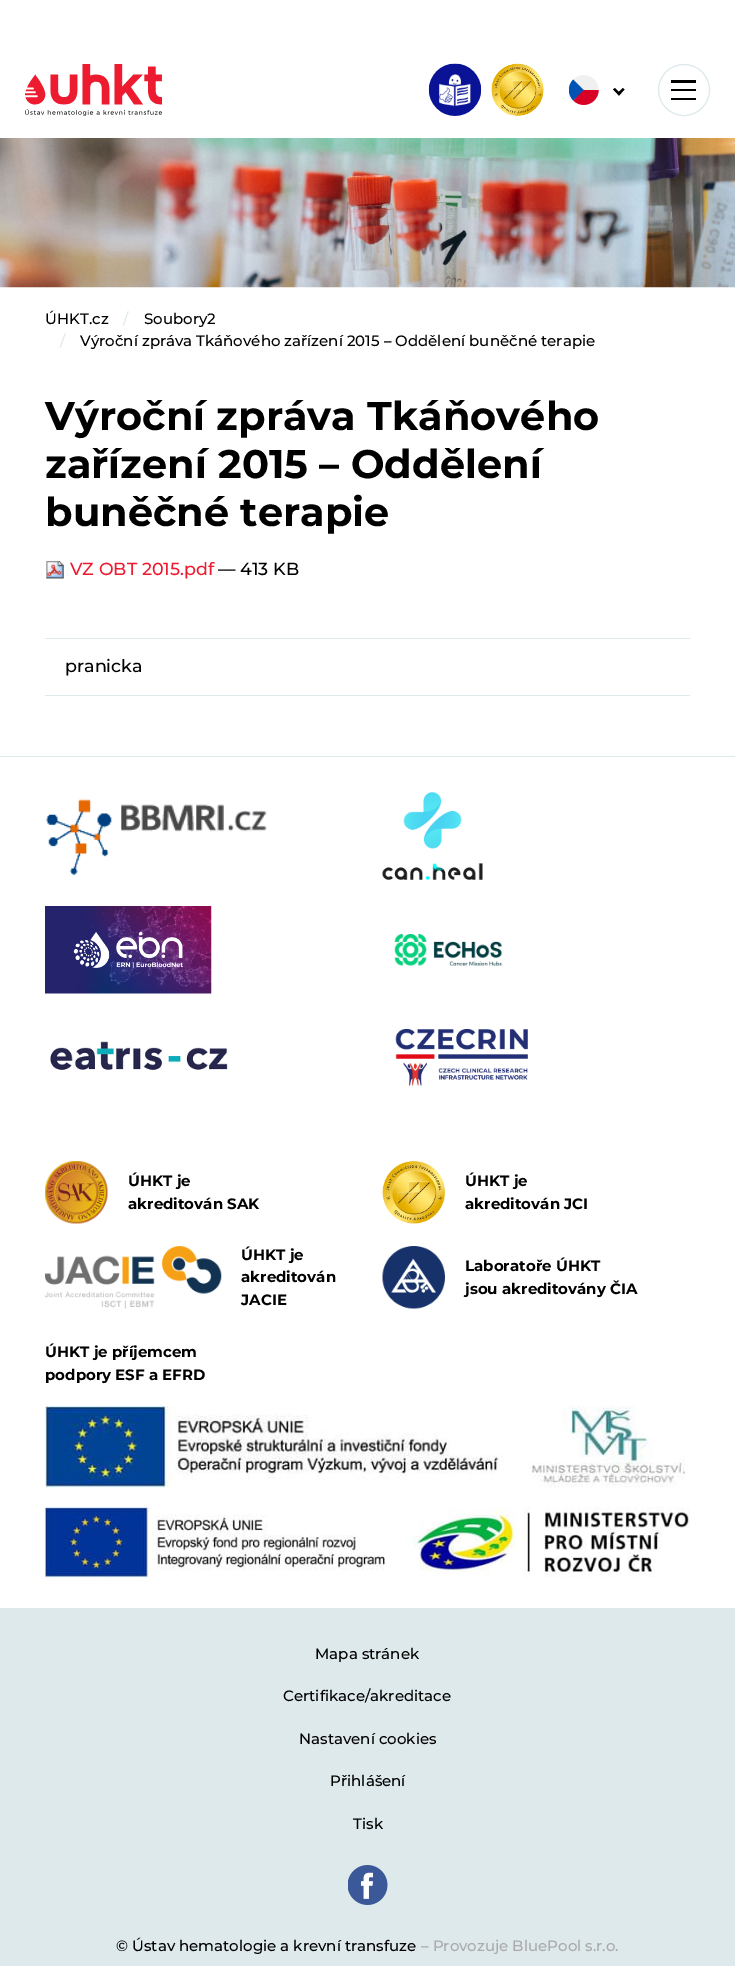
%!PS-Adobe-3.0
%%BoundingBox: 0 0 735 1966
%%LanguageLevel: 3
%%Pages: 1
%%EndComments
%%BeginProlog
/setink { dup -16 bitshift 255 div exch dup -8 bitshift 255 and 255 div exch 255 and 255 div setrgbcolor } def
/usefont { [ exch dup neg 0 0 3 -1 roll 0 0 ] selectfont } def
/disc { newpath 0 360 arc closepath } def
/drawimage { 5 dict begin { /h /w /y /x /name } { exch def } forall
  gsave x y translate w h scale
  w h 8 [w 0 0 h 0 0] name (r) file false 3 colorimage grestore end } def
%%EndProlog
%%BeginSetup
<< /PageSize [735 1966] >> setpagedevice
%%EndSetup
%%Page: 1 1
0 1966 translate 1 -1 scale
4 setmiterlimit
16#FFFFFF setink
0 0 735 1966 rectfill
(img1.raw) 25 64 137 52 drawimage
(img2.raw) 428 63 54 53 drawimage
(img3.raw) 491 63 53 53 drawimage
(img4.raw) 569 75 30 30 drawimage
16#000000 setink
623 88 moveto 624.5 89.5 lineto 619 95.5 lineto 617 93.5 lineto closepath fill
615 88 moveto 620.5 93.5 lineto 619 95.5 lineto 613 89.5 lineto closepath fill
16#DEE9EB setink
684 90 25.5 disc stroke
[
    [671 80 25 3 16#000000]
    [671 89 25 2 16#000000]
    [671 98 25 2 16#000000]
] { aload pop setink rectfill } forall
(img5.raw) 0 138 735 150 drawimage
/Montserrat-Thin 15 usefont
45 324 moveto (ÚHKT.cz) show
16#DEE9EB setink
123 324 moveto (/) show
16#000000 setink
144 324 moveto (Soubory2) show
16#DEE9EB setink
60 346 moveto (/) show
16#000000 setink
80 346 moveto (Výroční zpráva Tkáňového zařízení 2015 – Oddělení buněčné terapie) show
/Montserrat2-Thin 39.9 usefont
[
    [(Výroční zpráva Tkáňového) 45 430]
    [(zařízení 2015 – Oddělení) 45 478]
    [(buněčné terapie) 45 526]
] { aload pop moveto show } forall
(img6.raw) 46 560 18 19 drawimage
/Montserrat-Thin 17.5 usefont
16#ED1B2F setink
70 575 moveto (VZ OBT 2015.pdf) show
16#000000 setink
218 575 moveto (— 413 KB) show
16#DEE9EB setink
45 638 645 1 rectfill
45 695 645 1 rectfill
16#000000 setink
65 672 moveto (pranicka) show
16#DEE9EB setink
0 756 735 1 rectfill
(img7.raw) 46 799 221 76 drawimage
(img8.raw) 382 792 101 88 drawimage
(img9.raw) 45 906 167 88 drawimage
(img10.raw) 394 933 108 33 drawimage
(img11.raw) 50 1041 178 29 drawimage
(img12.raw) 395 1028 133 58 drawimage
(img13.raw) 45 1161 63 63 drawimage
/Montserrat2-Thin 15 usefont
16#000000 setink
128 1186 moveto (ÚHKT je) show
128 1209 moveto (akreditován SAK) show
(img14.raw) 382 1161 63 63 drawimage
465 1186 moveto (ÚHKT je) show
465 1209 moveto (akreditován JCI) show
(img15.raw) 45 1246 177 63 drawimage
[
    [(ÚHKT je) 241 1260]
    [(akreditován) 241 1282]
    [(JACIE) 241 1305]
] { aload pop moveto show } forall
(img16.raw) 382 1246 63 63 drawimage
[
    [(Laboratoře ÚHKT) 465 1271]
    [(jsou akreditovány ČIA) 465 1294]
    [(ÚHKT je příjemcem) 45 1357]
    [(podpory ESF a EFRD) 45 1380]
] { aload pop moveto show } forall
(img17.raw) 45 1406 640 82 drawimage
(img18.raw) 45 1507 645 71 drawimage
16#DEE9EB setink
0 1608 735 358 rectfill
/Montserrat-Thin 15 usefont
16#000000 setink
[
    [(Mapa stránek) 315 1659]
    [(Certifikace/akreditace) 283 1701]
    [(Nastavení cookies) 299 1744]
    [(Přihlášení) 330 1786]
    [(Tisk) 353 1829]
] { aload pop moveto show } forall
(img19.raw) 348 1865 40 40 drawimage
116 1951 moveto (© Ústav hematologie a krevní transfuze) show
16#AAAAAA setink
421 1951 moveto (– Provozuje BluePool s.r.o.) show
showpage
%%EOF
